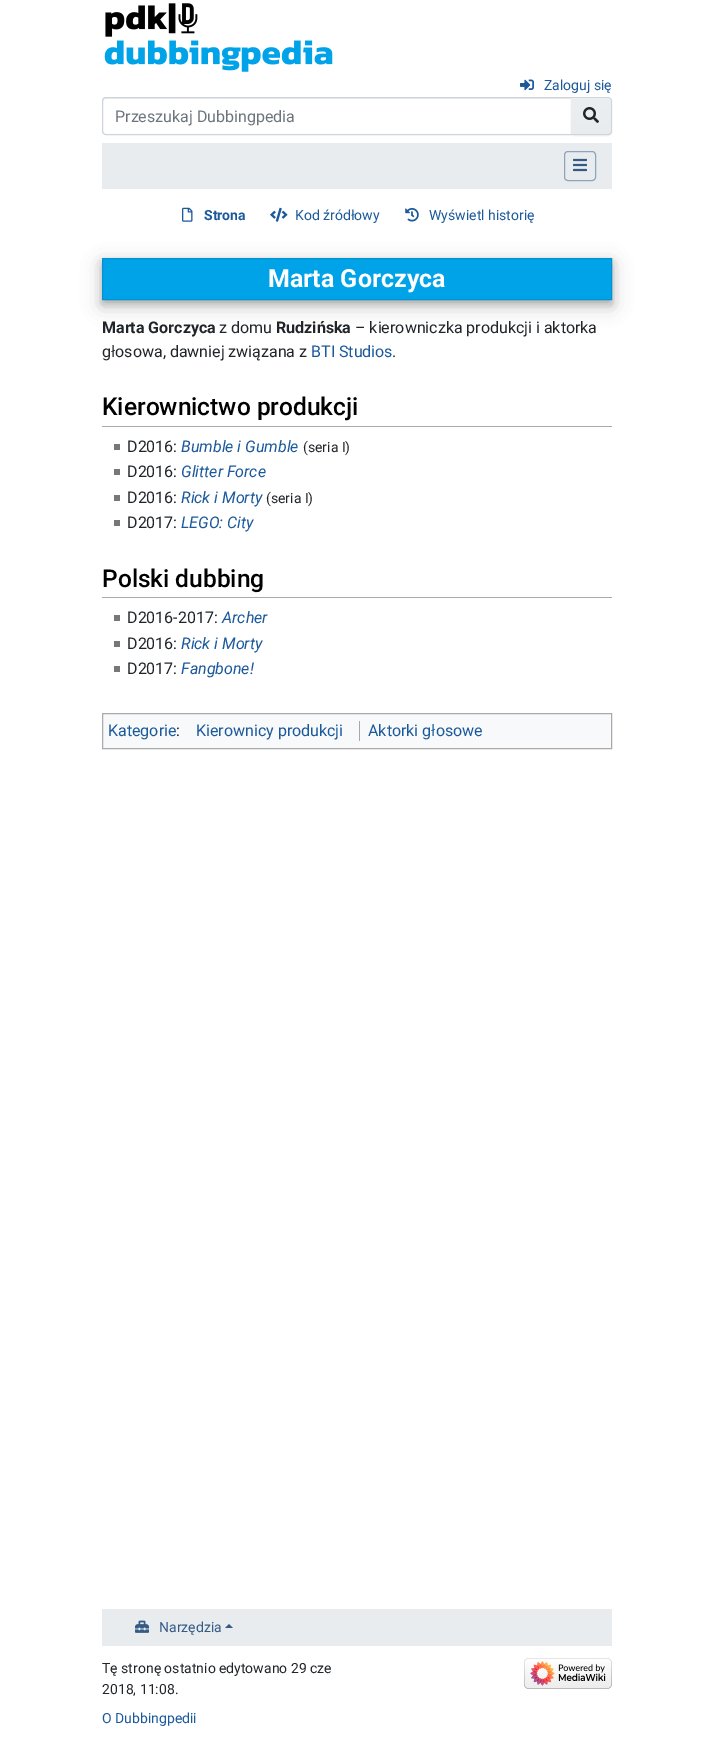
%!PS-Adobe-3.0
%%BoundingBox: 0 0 713 1741
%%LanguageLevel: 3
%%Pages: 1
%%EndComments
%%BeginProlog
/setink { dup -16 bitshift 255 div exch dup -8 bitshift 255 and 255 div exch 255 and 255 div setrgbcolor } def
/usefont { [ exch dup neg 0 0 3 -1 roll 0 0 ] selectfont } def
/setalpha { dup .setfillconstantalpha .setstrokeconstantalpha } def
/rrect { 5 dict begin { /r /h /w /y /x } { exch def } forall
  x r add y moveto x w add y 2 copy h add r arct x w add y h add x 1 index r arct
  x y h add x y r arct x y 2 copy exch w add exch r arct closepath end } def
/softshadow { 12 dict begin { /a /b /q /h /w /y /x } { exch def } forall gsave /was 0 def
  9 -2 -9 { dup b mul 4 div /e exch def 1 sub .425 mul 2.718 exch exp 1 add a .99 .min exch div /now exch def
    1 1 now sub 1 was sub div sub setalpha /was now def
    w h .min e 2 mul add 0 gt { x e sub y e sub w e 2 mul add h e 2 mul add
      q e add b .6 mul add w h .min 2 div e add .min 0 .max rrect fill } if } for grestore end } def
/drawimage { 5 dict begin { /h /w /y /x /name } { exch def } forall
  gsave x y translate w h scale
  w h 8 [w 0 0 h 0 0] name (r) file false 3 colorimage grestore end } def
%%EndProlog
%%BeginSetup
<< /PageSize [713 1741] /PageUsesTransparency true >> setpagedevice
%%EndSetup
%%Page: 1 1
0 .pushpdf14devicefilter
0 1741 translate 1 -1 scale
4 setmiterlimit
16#FFFFFF setink
0 0 713 1741 rectfill
(img1.raw) 104 3 229 69 drawimage
(img2.raw) 520 79 14 12 drawimage
/Roboto-Regular 14 usefont
16#1B599B setink
544 90 moveto (Zaloguj się) show
16#ECECEC setink
106 99 moveto 571 99 lineto 571 98 lineto 106 98 lineto 104 98 103 100 103 102 curveto 103 100 104 99 106 99 curveto closepath fill
16#CED4DA setink
106 97.5 moveto 571.5 97.5 lineto 571.5 134.5 lineto 106 134.5 lineto 104 134.5 102.5 133 102.5 131 curveto 102.5 101 lineto 102.5 99 104 97.5 106 97.5 curveto closepath stroke
/Roboto-Regular 16 usefont
16#6C757D setink
115 122 moveto (Przeszukaj Dubbingpedia) show
16#000000 setink
571 98 41 38 4 0.5 0.07 softshadow
gsave 571 98 moveto 608 98 lineto 609.5 98 611 99.5 611 101 curveto 611 131 lineto 611 132.5 609.5 134 608 134 curveto 571 134 lineto closepath clip newpath
<< /ShadingType 2 /ColorSpace /DeviceRGB /Coords [591 98 591 134] /Extend [true true] /Function << /FunctionType 2 /Domain [0 1] /C0 [0.925 0.937 0.945] /C1 [0.914 0.925 0.937] /N 1 >> >> shfill grestore
0.15 setalpha
16#FFFFFF setink
571 99 moveto 608 99 lineto 610 99 611 100 611 102 curveto 611 101 lineto 611 99 610 98 608 98 curveto 571 98 lineto closepath fill
1 setalpha
16#CED4DA setink
571 97 moveto 608 97 lineto 610 97 612 99 612 101 curveto 612 131 lineto 612 133 610 135 608 135 curveto 571 135 lineto closepath 571 98 moveto 608 98 lineto 610 98 611 99 611 101 curveto 611 131 lineto 611 133 610 134 608 134 curveto 571 134 lineto closepath eofill
(img3.raw) 583 107 16 16 drawimage
16#E9ECEF setink
102 143 510 46 rectfill
16#8FA4BA setink
564.5 151.5 31 29 3.5 rrect stroke
(img4.raw) 573 158 14 14 drawimage
(img5.raw) 182 207 11 15 drawimage
/Roboto-Bold 14 usefont
16#1B599B setink
204 220 moveto (Strona) show
(img6.raw) 270 207 18 15 drawimage
/Roboto-Regular 14 usefont
295 220 moveto (Kod źródłowy) show
(img7.raw) 405 208 14 14 drawimage
429 220 moveto (Wyświetl historię) show
16#000000 setink
102 264 510 42 0 10 0.19 softshadow
102 262 510 42 0 4 0.2 softshadow
16#00A2E8 setink
102.5 258.5 moveto 611.5 258.5 lineto 611.5 299.5 lineto 102.5 299.5 lineto closepath gsave fill grestore
16#0092D1 setink
stroke
/Roboto-Bold 25 usefont
16#FFFFFF setink
268 287 moveto (Marta Gorczyca) show
/Roboto-Bold 16 usefont
16#212529 setink
102 333 moveto (Marta Gorczyca) show
/Roboto-Regular 16 usefont
219 333 moveto (z domu) show
/Roboto-Bold 16 usefont
276 333 moveto (Rudzińska) show
/Roboto-Regular 16 usefont
355 333 moveto (– kierowniczka produkcji i aktorka) show
102 357 moveto (głosowa, dawniej związana z) show
16#1B599B setink
311 357 moveto (BTI Studios) show
16#212529 setink
392 357 moveto (.) show
16#AAAAAA setink
102 426 510 1 rectfill
/Roboto-Medium 24.5 usefont
16#000000 setink
102 415 moveto (Kierownictwo produkcji) show
16#777777 setink
114 444 6 6 rectfill
/Roboto-Regular 16 usefont
16#212529 setink
127 452 moveto (D2016:) show
/Roboto-Italic 16 usefont
16#1B599B setink
181 452 moveto (Bumble i Gumble) show
/Roboto-Regular 14 usefont
16#212529 setink
303 452 moveto (\(seria I\)) show
16#777777 setink
114 469 6 6 rectfill
/Roboto-Regular 16 usefont
16#212529 setink
127 477 moveto (D2016:) show
/Roboto-Italic 16 usefont
16#1B599B setink
181 477 moveto (Glitter Force) show
16#777777 setink
114 495 6 6 rectfill
/Roboto-Regular 16 usefont
16#212529 setink
127 503 moveto (D2016:) show
/Roboto-Italic 16 usefont
16#1B599B setink
181 503 moveto (Rick i Morty) show
/Roboto-Regular 14 usefont
16#212529 setink
266 503 moveto (\(seria I\)) show
16#777777 setink
114 520 6 6 rectfill
/Roboto-Regular 16 usefont
16#212529 setink
127 528 moveto (D2017:) show
/Roboto-Italic 16 usefont
16#1B599B setink
181 528 moveto (LEGO: City) show
16#AAAAAA setink
102 597 510 1 rectfill
/Roboto-Medium 24.5 usefont
16#000000 setink
102 587 moveto (Polski dubbing) show
16#777777 setink
114 615 6 6 rectfill
/Roboto-Regular 16 usefont
16#212529 setink
127 623 moveto (D2016-2017:) show
/Roboto-Italic 16 usefont
16#1B599B setink
222 623 moveto (Archer) show
16#777777 setink
114 641 6 6 rectfill
/Roboto-Regular 16 usefont
16#212529 setink
127 649 moveto (D2016:) show
/Roboto-Italic 16 usefont
16#1B599B setink
181 649 moveto (Rick i Morty) show
16#777777 setink
114 666 6 6 rectfill
/Roboto-Regular 16 usefont
16#212529 setink
127 674 moveto (D2017:) show
/Roboto-Italic 16 usefont
16#1B599B setink
181 674 moveto (Fangbone!) show
16#F8F9FA setink
102.5 713.5 moveto 611.5 713.5 lineto 611.5 748.5 lineto 102.5 748.5 lineto closepath gsave fill grestore
16#AAAAAA setink
stroke
/Roboto-Regular 16 usefont
16#1B599B setink
108 736 moveto (Kategorie) show
16#212529 setink
176 736 moveto (:) show
16#1B599B setink
196 736 moveto (Kierownicy produkcji) show
16#A2A9B1 setink
359 721 1 20 rectfill
16#1B599B setink
368 736 moveto (Aktorki głosowe) show
16#E9ECEF setink
102 1609 510 37 rectfill
(img8.raw) 135 1620 14 13 drawimage
/Roboto-Regular 14 usefont
16#355B84 setink
159 1632 moveto (Narzędzia) show
233 1628 moveto 225 1628 lineto 229 1624 lineto closepath fill
16#212529 setink
102 1673 moveto (Tę stronę ostatnio edytowano 29 cze) show
102 1694 moveto (2018, 11:08.) show
16#1B599B setink
102 1723 moveto (O Dubbingpedii) show
(img9.raw) 524 1658 88 31 drawimage
.poppdf14devicefilter showpage
%%EOF
